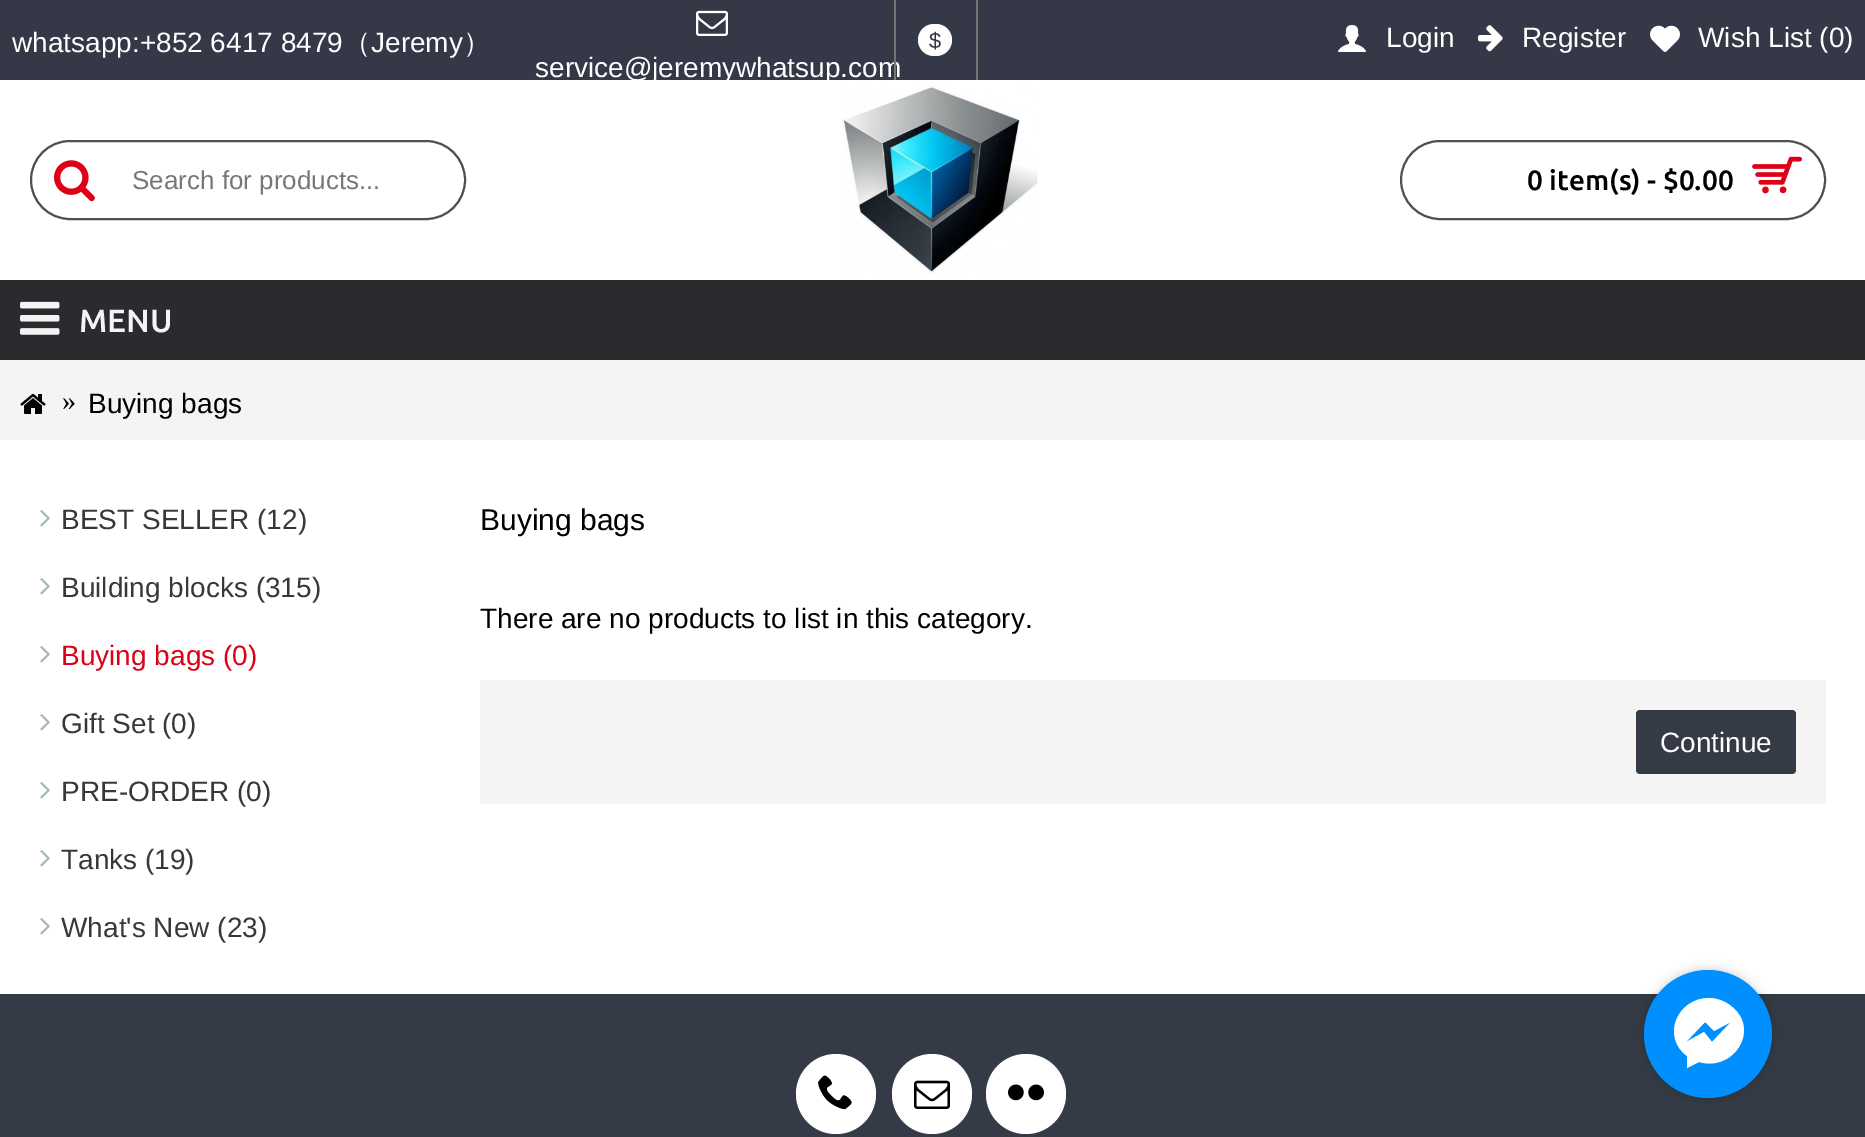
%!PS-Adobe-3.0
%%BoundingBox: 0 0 1865 1137
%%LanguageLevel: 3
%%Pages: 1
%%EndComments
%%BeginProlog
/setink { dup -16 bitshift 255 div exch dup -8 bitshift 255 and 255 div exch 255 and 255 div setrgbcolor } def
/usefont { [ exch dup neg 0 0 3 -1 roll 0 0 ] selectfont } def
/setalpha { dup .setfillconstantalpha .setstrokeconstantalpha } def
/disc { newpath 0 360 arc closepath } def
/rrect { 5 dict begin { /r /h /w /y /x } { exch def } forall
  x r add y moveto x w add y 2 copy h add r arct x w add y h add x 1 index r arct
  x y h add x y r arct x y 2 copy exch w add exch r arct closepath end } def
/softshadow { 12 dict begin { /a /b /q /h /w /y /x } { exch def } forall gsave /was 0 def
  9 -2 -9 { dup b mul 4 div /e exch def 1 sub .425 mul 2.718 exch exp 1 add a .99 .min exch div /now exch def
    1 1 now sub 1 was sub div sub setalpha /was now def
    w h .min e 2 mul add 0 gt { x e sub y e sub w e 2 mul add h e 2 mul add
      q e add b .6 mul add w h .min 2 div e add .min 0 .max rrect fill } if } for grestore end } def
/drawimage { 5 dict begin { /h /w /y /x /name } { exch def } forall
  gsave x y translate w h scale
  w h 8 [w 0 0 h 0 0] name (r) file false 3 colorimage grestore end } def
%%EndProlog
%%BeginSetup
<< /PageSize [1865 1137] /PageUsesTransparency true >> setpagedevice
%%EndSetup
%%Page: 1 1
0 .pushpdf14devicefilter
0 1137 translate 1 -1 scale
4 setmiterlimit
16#FFFFFF setink
0 0 1865 1137 rectfill
16#353847 setink
0 0 1865 80 rectfill
/LiberationSans-Regular 28 usefont
16#FFFFFF setink
12 52 moveto (whatsapp:+852 6417 8479) show
/WenQuanYiZenHei-Medium 28 usefont
343 52 moveto (（) show
/LiberationSans-Regular 28 usefont
371 52 moveto (Jeremy) show
/WenQuanYiZenHei-Medium 28 usefont
463 52 moveto (）) show
(img1.raw) 696 10 32 26 drawimage
/LiberationSans-Regular 28 usefont
535 77 moveto (service@jeremywhatsup.com) show
16#777777 setink
976 0 2 80 rectfill
894 0 2 80 rectfill
16#FFFFFF setink
918 24 34 32 16 rrect fill
/LiberationSans-Regular 22 usefont
16#333745 setink
929 48 moveto ($) show
(img2.raw) 1338 25 28 27 drawimage
/LiberationSans-Regular 28 usefont
16#FFFFFF setink
1386 47 moveto (Login) show
(img3.raw) 1478 25 25 27 drawimage
1522 47 moveto (Register) show
(img4.raw) 1650 25 30 27 drawimage
1698 47 moveto (Wish List \(0\)) show
16#505050 setink
2 setlinewidth
31 141 434 78 39 rrect stroke
(img5.raw) 54 160 41 42 drawimage
/LiberationSans-Regular 26 usefont
16#777777 setink
132 189 moveto (Search for products...) show
(img6.raw) 842 85 196 188 drawimage
16#505050 setink
1401 141 424 78 39 rrect stroke
/Ubuntu-Medium 28 usefont
16#000000 setink
1527 190 moveto (0 item\(s\) - $0.00) show
(img7.raw) 1752 156 50 38 drawimage
16#2A2B2E setink
0 280 1865 80 rectfill
(img8.raw) 20 301 40 34 drawimage
/Ubuntu-Medium 32 usefont
16#F4F4F4 setink
79 332 moveto (MENU) show
0 360 1865 80 rectfill
(img9.raw) 20 394 26 20 drawimage
/LiberationSerif-Regular 28 usefont
16#000000 setink
62 410 moveto (») show
/LiberationSans-Regular 28 usefont
88 413 moveto (Buying bags) show
(img10.raw) 40 510 10 17 drawimage
16#383838 setink
61 529 moveto (BEST SELLER \(12\)) show
(img10.raw) 40 578 10 17 drawimage
61 597 moveto (Building blocks \(315\)) show
(img10.raw) 40 646 10 17 drawimage
16#DD0017 setink
61 665 moveto (Buying bags \(0\)) show
(img10.raw) 40 714 10 17 drawimage
16#383838 setink
61 733 moveto (Gift Set \(0\)) show
(img10.raw) 40 782 10 17 drawimage
61 801 moveto (PRE-ORDER \(0\)) show
(img10.raw) 40 850 10 17 drawimage
61 869 moveto (Tanks \(19\)) show
(img10.raw) 40 918 10 17 drawimage
61 937 moveto (What's New \(23\)) show
/LiberationSans-Regular 30 usefont
16#000000 setink
480 530 moveto (Buying bags) show
/LiberationSans-Regular 28 usefont
480 628 moveto (There are no products to list in this category.) show
16#F4F4F4 setink
480 680 1346 124 rectfill
16#343A46 setink
1636 710 160 64 4 rrect fill
16#FFFFFF setink
1660 752 moveto (Continue) show
16#343A46 setink
0 994 1865 143 rectfill
16#000000 setink
1644 970 128 128 64 5 0.2 softshadow
16#008FFF setink
1708 1034 64 disc fill
16#FFFFFF setink
1709 998 moveto 1677 998 1661 1037 1687 1056 curveto 1687 1068 lineto 1699 1062 lineto 1734 1072 1761 1029 1731 1006 curveto 1725 1001 1717 998 1709 998 curveto closepath 1712 1042 moveto 1704 1032 lineto 1686 1042 lineto 1705 1022 lineto 1714 1031 lineto 1731 1022 lineto closepath fill
836 1094 40 disc fill
(img11.raw) 818 1075 34 35 drawimage
932 1094 40 disc fill
(img12.raw) 914 1080 36 29 drawimage
1026 1094 40 disc fill
(img13.raw) 1008 1084 36 17 drawimage
.poppdf14devicefilter showpage
%%EOF
